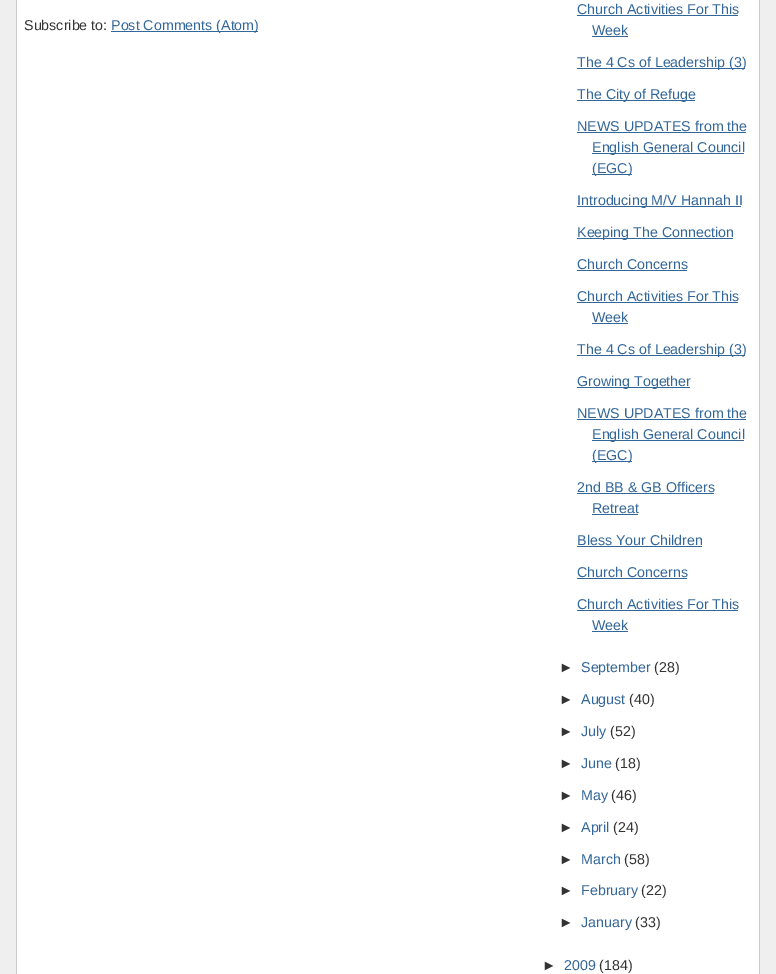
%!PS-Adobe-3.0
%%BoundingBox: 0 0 776 974
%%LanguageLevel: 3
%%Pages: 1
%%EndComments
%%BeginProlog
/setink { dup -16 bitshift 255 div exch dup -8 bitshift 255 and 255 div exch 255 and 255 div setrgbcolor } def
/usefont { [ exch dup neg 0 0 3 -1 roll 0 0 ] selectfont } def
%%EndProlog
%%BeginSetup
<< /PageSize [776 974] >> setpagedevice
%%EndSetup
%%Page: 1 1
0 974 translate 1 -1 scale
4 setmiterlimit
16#EFEFEF setink
0 0 776 974 rectfill
[
    [17 0 742 974 16#FFFFFF]
    [759 0 1 974 16#CCCCCC]
    [16 0 1 974 16#CCCCCC]
] { aload pop setink rectfill } forall
/LiberationSans-Regular 14.25 usefont
16#333333 setink
24 30 moveto (Subscribe to:) show
16#336699 setink
111 31 147 1 rectfill
111 30 moveto (Post Comments \(Atom\)) show
577 14 moveto (Church Activities For This) show
577 15 161 1 rectfill
592 35 moveto (Week) show
592 36 36 1 rectfill
577 68 168 1 rectfill
577 67 moveto (The 4 Cs of Leadership \(3\)) show
577 100 118 1 rectfill
577 99 moveto (The City of Refuge) show
577 131 moveto (NEWS UPDATES from the) show
577 132 169 1 rectfill
592 153 152 1 rectfill
592 152 moveto (English General Council) show
592 174 40 1 rectfill
592 173 moveto (\(EGC\)) show
577 206 164 1 rectfill
577 205 moveto (Introducing M/V Hannah II) show
577 238 156 1 rectfill
577 237 moveto (Keeping The Connection) show
577 269 moveto (Church Concerns) show
577 270 110 1 rectfill
577 301 moveto (Church Activities For This) show
577 302 161 1 rectfill
592 322 moveto (Week) show
592 323 36 1 rectfill
577 355 168 1 rectfill
577 354 moveto (The 4 Cs of Leadership \(3\)) show
577 387 113 1 rectfill
577 386 moveto (Growing Together) show
577 418 moveto (NEWS UPDATES from the) show
577 419 169 1 rectfill
592 440 152 1 rectfill
592 439 moveto (English General Council) show
592 461 40 1 rectfill
592 460 moveto (\(EGC\)) show
577 492 moveto (2nd BB & GB Officers) show
577 493 137 1 rectfill
592 513 moveto (Retreat) show
592 514 46 1 rectfill
577 545 moveto (Bless Your Children) show
577 546 125 1 rectfill
577 577 moveto (Church Concerns) show
577 578 110 1 rectfill
577 609 moveto (Church Activities For This) show
577 610 161 1 rectfill
592 630 moveto (Week) show
592 631 36 1 rectfill
16#333333 setink
559 672 moveto (►) show
16#336699 setink
581 672 moveto (September) show
16#333333 setink
654 672 moveto (\(28\)) show
559 704 moveto (►) show
16#336699 setink
581 704 moveto (August) show
16#333333 setink
629 704 moveto (\(40\)) show
559 736 moveto (►) show
16#336699 setink
581 736 moveto (July) show
16#333333 setink
610 736 moveto (\(52\)) show
559 768 moveto (►) show
16#336699 setink
581 768 moveto (June) show
16#333333 setink
615 768 moveto (\(18\)) show
559 800 moveto (►) show
16#336699 setink
581 800 moveto (May) show
16#333333 setink
611 800 moveto (\(46\)) show
559 832 moveto (►) show
16#336699 setink
581 832 moveto (April) show
16#333333 setink
613 832 moveto (\(24\)) show
559 864 moveto (►) show
16#336699 setink
581 864 moveto (March) show
16#333333 setink
624 864 moveto (\(58\)) show
559 895 moveto (►) show
16#336699 setink
581 895 moveto (February) show
16#333333 setink
641 895 moveto (\(22\)) show
559 927 moveto (►) show
16#336699 setink
581 927 moveto (January) show
16#333333 setink
635 927 moveto (\(33\)) show
542 970 moveto (►) show
16#336699 setink
564 970 moveto (2009) show
16#333333 setink
599 970 moveto (\(184\)) show
showpage
%%EOF
